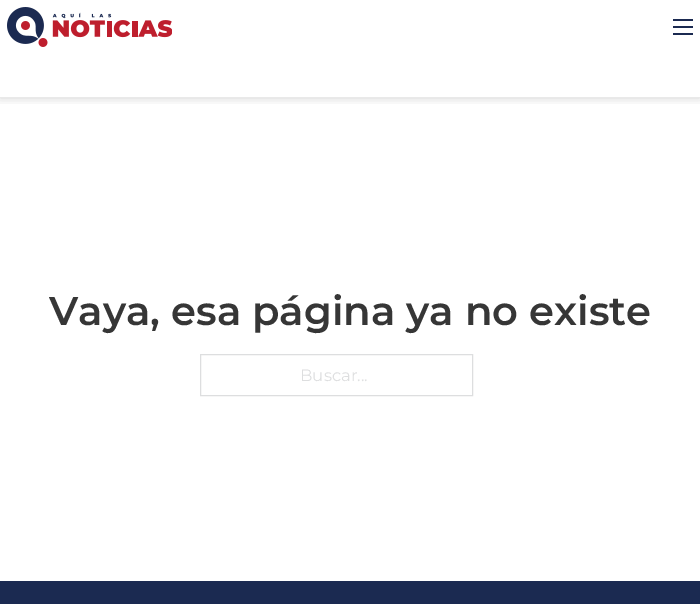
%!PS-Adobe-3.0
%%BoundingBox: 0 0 700 604
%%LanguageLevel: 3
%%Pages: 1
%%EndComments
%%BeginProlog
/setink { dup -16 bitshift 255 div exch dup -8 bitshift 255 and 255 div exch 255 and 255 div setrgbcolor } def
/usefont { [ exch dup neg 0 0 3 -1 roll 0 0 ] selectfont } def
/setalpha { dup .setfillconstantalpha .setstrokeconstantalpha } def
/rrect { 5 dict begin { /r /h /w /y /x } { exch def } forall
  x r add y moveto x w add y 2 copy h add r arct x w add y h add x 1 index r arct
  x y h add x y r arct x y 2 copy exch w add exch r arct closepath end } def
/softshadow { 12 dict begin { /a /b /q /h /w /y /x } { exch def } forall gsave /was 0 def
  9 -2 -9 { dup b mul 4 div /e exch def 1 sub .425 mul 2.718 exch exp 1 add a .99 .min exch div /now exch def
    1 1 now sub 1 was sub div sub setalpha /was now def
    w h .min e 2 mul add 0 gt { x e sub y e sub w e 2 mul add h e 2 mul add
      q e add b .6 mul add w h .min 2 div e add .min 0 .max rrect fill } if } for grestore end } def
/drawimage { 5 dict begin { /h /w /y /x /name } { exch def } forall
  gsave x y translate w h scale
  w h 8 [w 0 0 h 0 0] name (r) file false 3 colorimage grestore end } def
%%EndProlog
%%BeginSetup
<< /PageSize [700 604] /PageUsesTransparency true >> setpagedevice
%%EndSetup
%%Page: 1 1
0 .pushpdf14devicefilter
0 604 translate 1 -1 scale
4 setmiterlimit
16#FFFFFF setink
0 0 700 604 rectfill
gsave
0 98 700 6 rectclip
16#212121 setink
0 0 700 98 0 5 0.2 softshadow
grestore
16#E9E9E9 setink
0 97 700 1 rectfill
(img1.raw) 7 7 165 40 drawimage
[
    [673 19 20 2 16#1B2A51]
    [673 26 20 2 16#1B2A51]
    [673 33 20 2 16#1B2A51]
] { aload pop setink rectfill } forall
/Montserrat-SemiBold 40.1 usefont
16#363636 setink
49 325 moveto (Vaya, esa página ya no existe) show
16#DDDEDF setink
200.5 354.5 272 41 rectstroke
/Montserrat-Regular 16.5 usefont
300 381 moveto (Buscar...) show
16#1B2A51 setink
0 581 700 23 rectfill
.poppdf14devicefilter showpage
%%EOF
